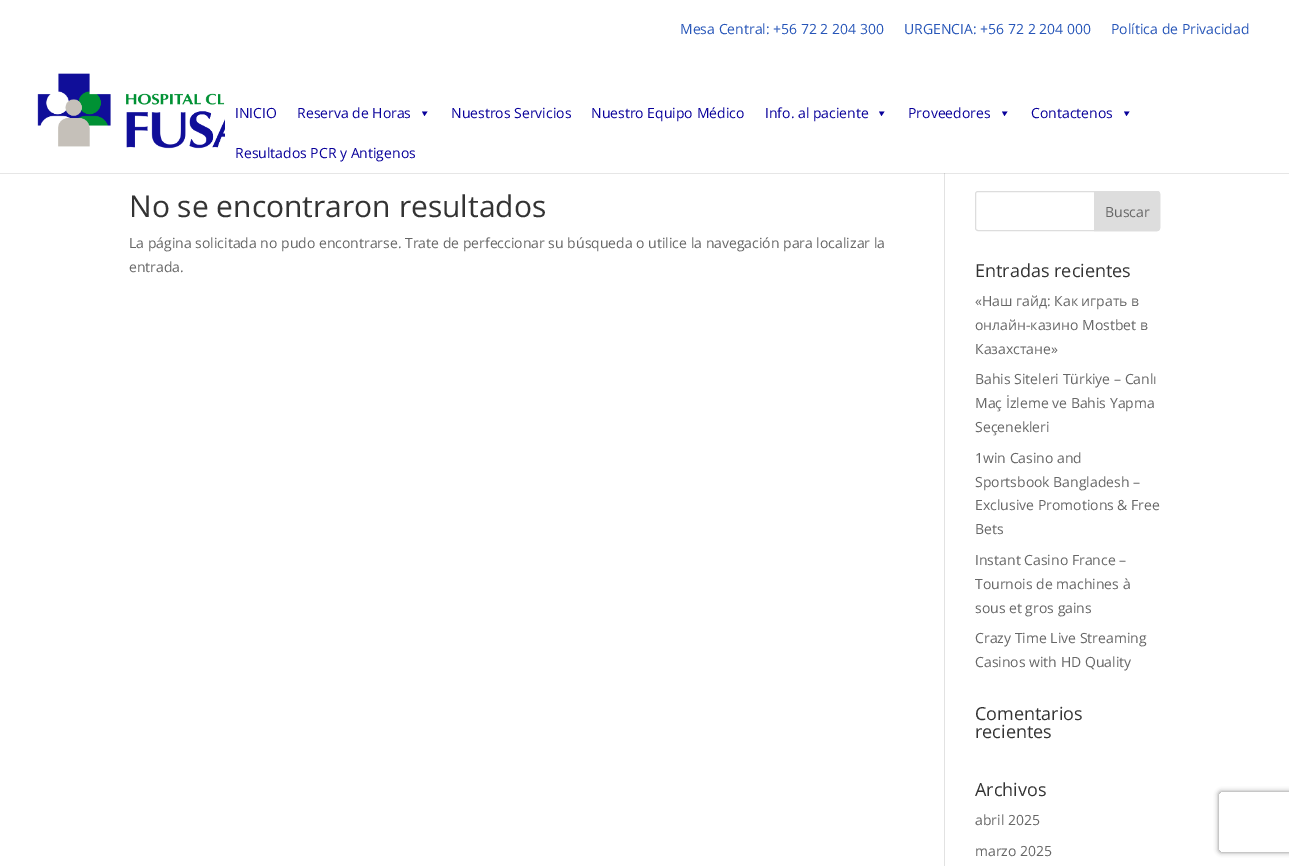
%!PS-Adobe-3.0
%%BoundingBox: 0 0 1289 866
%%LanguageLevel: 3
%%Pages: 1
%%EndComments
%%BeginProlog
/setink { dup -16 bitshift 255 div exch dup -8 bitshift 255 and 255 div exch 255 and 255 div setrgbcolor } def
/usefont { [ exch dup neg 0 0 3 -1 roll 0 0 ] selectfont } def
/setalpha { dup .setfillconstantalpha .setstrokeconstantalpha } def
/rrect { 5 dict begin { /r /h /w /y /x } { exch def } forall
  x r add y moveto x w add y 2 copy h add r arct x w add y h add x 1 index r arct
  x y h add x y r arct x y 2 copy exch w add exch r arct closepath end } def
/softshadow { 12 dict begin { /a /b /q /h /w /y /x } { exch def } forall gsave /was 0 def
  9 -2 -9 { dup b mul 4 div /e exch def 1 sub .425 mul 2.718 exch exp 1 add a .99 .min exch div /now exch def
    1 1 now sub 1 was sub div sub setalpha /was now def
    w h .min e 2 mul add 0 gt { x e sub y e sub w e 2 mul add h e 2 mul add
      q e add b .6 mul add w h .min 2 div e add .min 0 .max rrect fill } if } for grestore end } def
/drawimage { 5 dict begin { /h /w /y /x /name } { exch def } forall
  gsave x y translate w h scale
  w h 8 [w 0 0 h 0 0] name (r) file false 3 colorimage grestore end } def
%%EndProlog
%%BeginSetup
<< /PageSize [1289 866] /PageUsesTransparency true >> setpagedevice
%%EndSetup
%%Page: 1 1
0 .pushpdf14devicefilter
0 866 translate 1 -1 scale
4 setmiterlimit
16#FFFFFF setink
0 0 1289 866 rectfill
16#E6E6E6 setink
0 173 1289 1 rectfill
/OpenSans-Regular 14 usefont
16#2655B8 setink
[
    [(Mesa Central: +56 72 2 204 300) 680 34]
    [(URGENCIA: +56 72 2 204 000) 904 34]
    [(Política de Privacidad) 1111 34]
] { aload pop moveto show } forall
(img1.raw) 37 73 188 76 drawimage
16#08009A setink
235 118 moveto (INICIO) show
297 118 moveto (Reserva de Horas) show
427.5 111.5 moveto 424.5 116 lineto 422 111.5 lineto closepath fill
[
    [(Nuestros Servicios) 451 118]
    [(Nuestro Equipo Médico) 591 118]
    [(Info. al paciente) 765 118]
] { aload pop moveto show } forall
884.5 111.5 moveto 881.5 116 lineto 879 111.5 lineto closepath fill
908 118 moveto (Proveedores) show
1007.5 111.5 moveto 1004.5 116 lineto 1002 111.5 lineto closepath fill
1031 118 moveto (Contactenos) show
1129.5 111.5 moveto 1126.5 116 lineto 1124 111.5 lineto closepath fill
235 158 moveto (Resultados PCR y Antigenos) show
16#E2E2E2 setink
944 174 1 692 rectfill
16#CBCBCB setink
944 173 1 1 rectfill
/OpenSans-Regular 30 usefont
16#333333 setink
129 217 moveto (No se encontraron resultados) show
/OpenSans-Regular 14 usefont
16#666666 setink
129 248 moveto (La página solicitada no pudo encontrarse. Trate de perfeccionar su búsqueda o utilice la navegación para localizar la) show
129 272 moveto (entrada.) show
16#DDDDDD setink
975.5 191.5 184 39 2.5 rrect stroke
1094.5 191.5 moveto 1157 191.5 lineto 1158.5 191.5 1159.5 192.5 1159.5 194 curveto 1159.5 228 lineto 1159.5 229.5 1158.5 230.5 1157 230.5 curveto 1094.5 230.5 lineto closepath gsave fill grestore
stroke
16#666666 setink
1105 217 moveto (Buscar) show
/OpenSans-Regular 18 usefont
16#333333 setink
975 277 moveto (Entradas recientes) show
/OpenSans-Regular 14 usefont
16#666666 setink
[
    [(«Наш гайд: Как играть в) 975 306]
    [(онлайн-казино Mostbet в) 975 330]
    [(Казахстане») 975 354]
    [(Bahis Siteleri Türkiye – Canlı) 975 384]
    [(Maç İzleme ve Bahis Yapma) 975 408]
    [(Seçenekleri) 975 432]
    [(1win Casino and) 975 463]
    [(Sportsbook Bangladesh –) 975 487]
    [(Exclusive Promotions & Free) 975 510]
    [(Bets) 975 534]
    [(Instant Casino France –) 975 565]
    [(Tournois de machines à) 975 589]
    [(sous et gros gains) 975 613]
    [(Crazy Time Live Streaming) 975 643]
    [(Casinos with HD Quality) 975 667]
] { aload pop moveto show } forall
/OpenSans-Regular 18 usefont
16#333333 setink
[
    [(Comentarios) 975 720]
    [(recientes) 975 738]
    [(Archivos) 975 796]
] { aload pop moveto show } forall
/OpenSans-Regular 14 usefont
16#666666 setink
975 825 moveto (abril 2025) show
975 856 moveto (marzo 2025) show
gsave
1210 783 moveto 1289 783 lineto 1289 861 lineto 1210 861 lineto closepath 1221 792 moveto 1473 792 lineto 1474 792 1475 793 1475 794 curveto 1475 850 lineto 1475 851 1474 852 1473 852 curveto 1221 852 lineto 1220 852 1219 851 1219 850 curveto 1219 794 lineto 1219 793 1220 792 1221 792 curveto closepath eoclip newpath
16#808080 setink
1219 792 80 60 2 2.5 1 softshadow
grestore
.poppdf14devicefilter showpage
%%EOF
